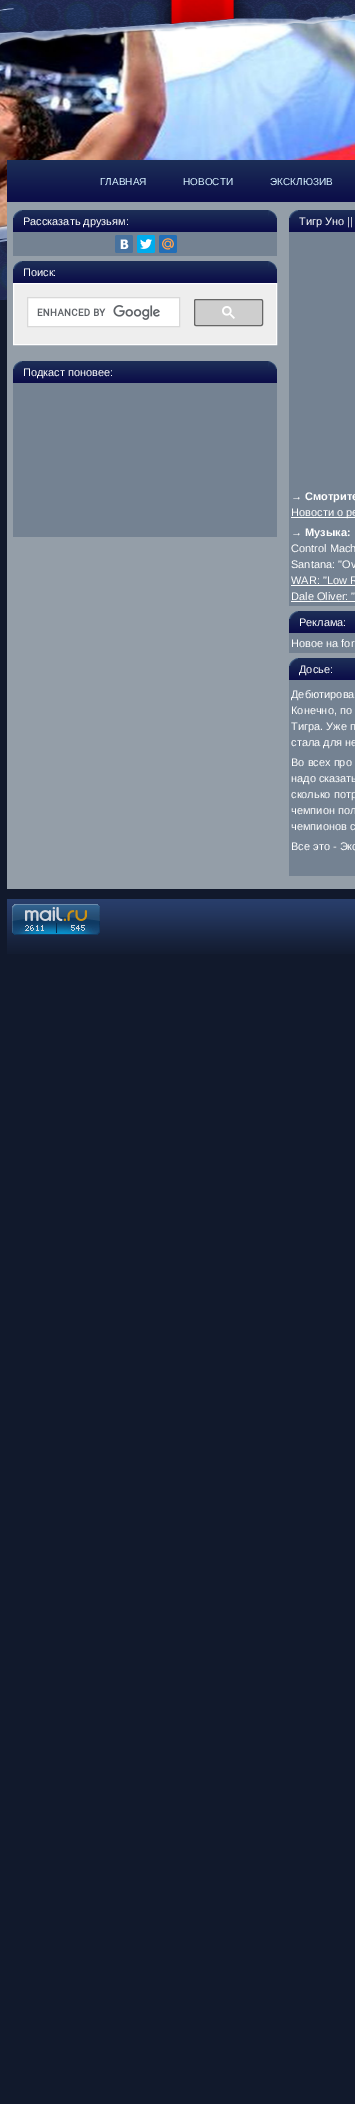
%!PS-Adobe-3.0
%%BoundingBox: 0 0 355 2104
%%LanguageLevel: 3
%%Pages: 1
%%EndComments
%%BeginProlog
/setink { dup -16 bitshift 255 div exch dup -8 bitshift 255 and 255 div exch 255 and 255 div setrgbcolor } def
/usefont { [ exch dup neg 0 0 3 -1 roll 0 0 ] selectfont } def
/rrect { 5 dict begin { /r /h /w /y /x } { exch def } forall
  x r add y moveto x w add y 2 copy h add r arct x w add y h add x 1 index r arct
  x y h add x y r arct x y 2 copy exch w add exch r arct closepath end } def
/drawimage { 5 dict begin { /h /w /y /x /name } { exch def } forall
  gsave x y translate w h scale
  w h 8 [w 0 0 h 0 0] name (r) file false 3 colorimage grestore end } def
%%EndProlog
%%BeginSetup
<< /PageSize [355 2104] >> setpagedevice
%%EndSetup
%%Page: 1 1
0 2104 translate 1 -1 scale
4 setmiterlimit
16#11192C setink
0 0 355 2104 rectfill
(img1.raw) 0 0 355 300 drawimage
(img2.raw) 7 160 348 42 drawimage
/LiberationSans-Regular 10 usefont
16#D5F1FF setink
[
    [(ГЛАВНАЯ) 100 185]
    [(НОВОСТИ) 183 185]
    [(ЭКСКЛЮЗИВ) 270 185]
] { aload pop moveto show } forall
16#949EA8 setink
7 202 348 687 rectfill
(img3.raw) 13 210 264 22 drawimage
(img4.raw) 13 210 9 8 drawimage
(img5.raw) 268 210 9 8 drawimage
/LiberationSans-Regular 11 usefont
16#FFFFFF setink
23 225 moveto (Рассказать друзьям:) show
16#748292 setink
13 232 264 24 rectfill
16#48729E setink
115 235 18 18 2 rrect fill
(img6.raw) 120 239 9 10 drawimage
16#00ACED setink
137 235 18 18 2 rrect fill
(img7.raw) 140 239 12 10 drawimage
16#226EB7 setink
159 235 18 18 2 rrect fill
(img8.raw) 162 238 12 12 drawimage
(img3.raw) 13 261 264 22 drawimage
(img4.raw) 13 261 9 8 drawimage
(img5.raw) 268 261 9 8 drawimage
16#FFFFFF setink
23 276 moveto (Поиск:) show
16#EEEEEE setink
13.5 283.5 moveto 276.5 283.5 lineto 276.5 344.5 lineto 13.5 344.5 lineto closepath gsave fill grestore
16#FFFFFF setink
stroke
27.5 297.5 moveto 179.5 297.5 lineto 179.5 326.5 lineto 27.5 326.5 lineto closepath gsave fill grestore
16#D9D9D9 setink
stroke
(img9.raw) 37 305 123 15 drawimage
16#CECECE setink
194.5 299.5 68 26 1.5 rrect gsave fill grestore
16#666666 setink
stroke
(img10.raw) 222 306 13 13 drawimage
(img3.raw) 13 361 264 22 drawimage
(img4.raw) 13 361 9 8 drawimage
(img5.raw) 268 361 9 8 drawimage
16#FFFFFF setink
23 376 moveto (Подкаст поновее:) show
16#748292 setink
13 383 264 154 rectfill
(img11.raw) 289 210 66 22 drawimage
(img4.raw) 289 210 9 8 drawimage
16#FFFFFF setink
299 225 moveto (Тигр Уно ||) show
16#748292 setink
289 232 66 374 rectfill
/LiberationSans-Bold 11 usefont
16#FFFFFF setink
291 500 moveto (→ Смотрите) show
291 517 64 1 rectfill
/LiberationSans-Regular 11 usefont
291 516 moveto (Новости о ре) show
/LiberationSans-Bold 11 usefont
291 536 moveto (→ Музыка:) show
/LiberationSans-Regular 11 usefont
[
    [(Control Mach) 291 552]
    [(Santana: "Ov) 291 568]
    [(WAR: "Low R) 291 584]
] { aload pop moveto show } forall
291 585 64 1 rectfill
291 600 moveto (Dale Oliver: ") show
291 601 64 1 rectfill
(img11.raw) 289 611 66 22 drawimage
(img4.raw) 289 611 9 8 drawimage
299 626 moveto (Реклама:) show
16#748292 setink
289 633 66 20 rectfill
16#FFFFFF setink
291 647 moveto (Новое на for) show
(img11.raw) 289 658 66 22 drawimage
(img4.raw) 289 658 9 8 drawimage
299 673 moveto (Досье:) show
16#748292 setink
289 680 66 196 rectfill
16#FFFFFF setink
[
    [(Дебютирова) 291 698]
    [(Конечно, по) 291 714]
    [(Тигра. Уже п) 291 730]
    [(стала для не) 291 746]
    [(Во всех про) 291 766]
    [(надо сказать) 291 782]
    [(сколько потр) 291 798]
    [(чемпион пол) 291 814]
    [(чемпионов с) 291 830]
    [(Все это - Экс) 291 850]
] { aload pop moveto show } forall
(img12.raw) 7 899 348 55 drawimage
(img13.raw) 12 904 88 31 drawimage
showpage
%%EOF
